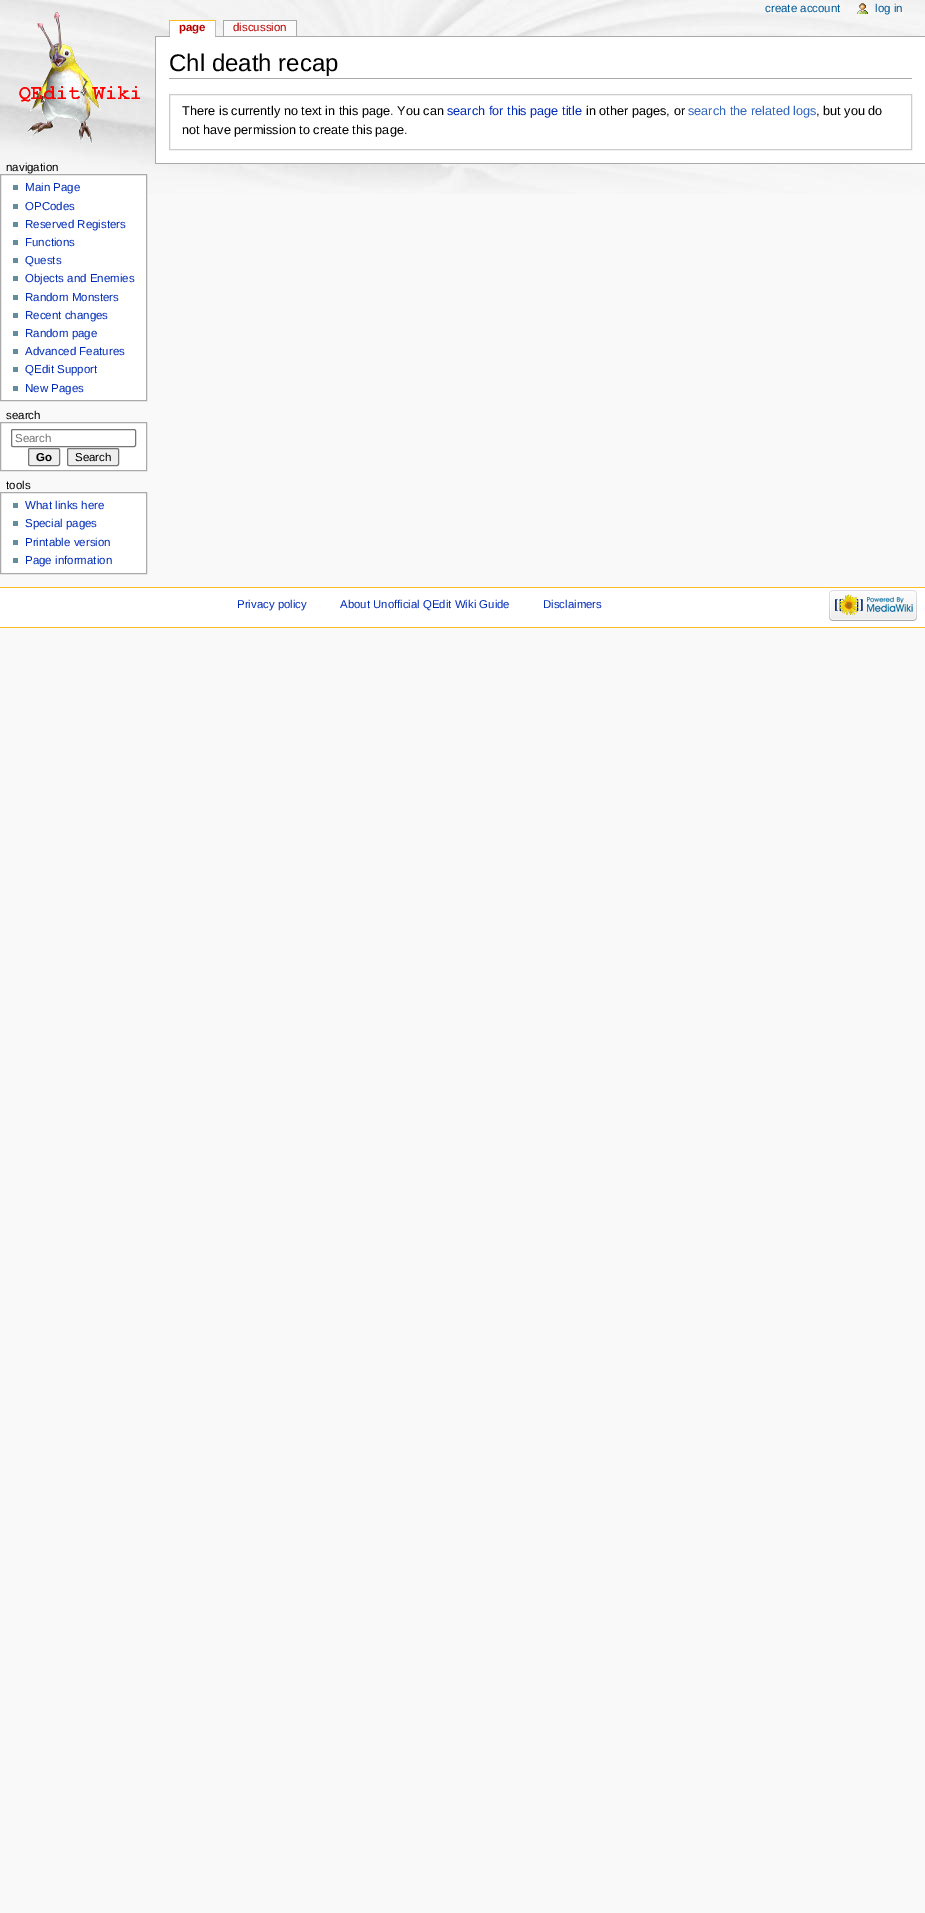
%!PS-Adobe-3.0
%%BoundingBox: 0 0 925 1913
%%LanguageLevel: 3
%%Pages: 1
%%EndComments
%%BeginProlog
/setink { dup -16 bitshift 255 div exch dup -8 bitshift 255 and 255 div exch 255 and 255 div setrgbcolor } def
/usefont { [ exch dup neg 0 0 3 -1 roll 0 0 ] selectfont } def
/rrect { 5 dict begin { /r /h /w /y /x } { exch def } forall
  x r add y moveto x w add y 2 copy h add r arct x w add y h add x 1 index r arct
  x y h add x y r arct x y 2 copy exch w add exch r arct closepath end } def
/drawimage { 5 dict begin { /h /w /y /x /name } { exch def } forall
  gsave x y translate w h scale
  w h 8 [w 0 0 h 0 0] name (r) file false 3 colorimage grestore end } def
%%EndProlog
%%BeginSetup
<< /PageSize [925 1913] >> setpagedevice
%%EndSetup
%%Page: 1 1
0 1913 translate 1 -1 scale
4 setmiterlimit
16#F9F9F9 setink
0 0 925 1913 rectfill
(img1.raw) 0 0 925 194 drawimage
/LiberationSans-Regular 11.5 usefont
16#005896 setink
765 12 moveto (create account) show
(img2.raw) 857 3 11 11 drawimage
875 12 moveto (log in) show
(img3.raw) 19 12 122 132 drawimage
16#AAAAAA setink
155 36 770 1 rectfill
16#FFFFFF setink
170 21 45 16 rectfill
/LiberationSans-Bold 11.5 usefont
16#BA0000 setink
179 31 moveto (page) show
[
    [169 20 47 1 16#FABD23]
    [215 20 1 16 16#FABD23]
    [169 20 1 16 16#FABD23]
    [224 21 72 15 16#FBFBFB]
] { aload pop setink rectfill } forall
/LiberationSans-Regular 11.5 usefont
16#BA0000 setink
233 31 moveto (discussion) show
[
    [223 20 74 1 16#AAAAAA]
    [296 20 1 16 16#AAAAAA]
    [223 20 1 16 16#AAAAAA]
] { aload pop setink rectfill } forall
16#000000 setink
6 171 moveto (navigation) show
16#FFFFFF setink
0.5 174.5 moveto 146.5 174.5 lineto 146.5 400.5 lineto 0.5 400.5 lineto closepath gsave fill grestore
16#AAAAAA setink
stroke
16#638C9C setink
13 185 5 5 rectfill
16#002BB8 setink
25 191 moveto (Main Page) show
16#638C9C setink
13 204 5 5 rectfill
16#002BB8 setink
25 210 moveto (OPCodes) show
16#638C9C setink
13 222 5 5 rectfill
16#002BB8 setink
25 228 moveto (Reserved Registers) show
16#638C9C setink
13 240 5 5 rectfill
16#002BB8 setink
25 246 moveto (Functions) show
16#638C9C setink
13 258 5 5 rectfill
16#002BB8 setink
25 264 moveto (Quests) show
16#638C9C setink
13 276 5 5 rectfill
16#002BB8 setink
25 282 moveto (Objects and Enemies) show
16#638C9C setink
13 295 5 5 rectfill
16#002BB8 setink
25 301 moveto (Random Monsters) show
16#638C9C setink
13 313 5 5 rectfill
16#002BB8 setink
25 319 moveto (Recent changes) show
16#638C9C setink
13 331 5 5 rectfill
16#002BB8 setink
25 337 moveto (Random page) show
16#638C9C setink
13 349 5 5 rectfill
16#002BB8 setink
25 355 moveto (Advanced Features) show
16#638C9C setink
13 367 5 5 rectfill
16#002BB8 setink
25 373 moveto (QEdit Support) show
16#638C9C setink
13 386 5 5 rectfill
16#002BB8 setink
25 392 moveto (New Pages) show
16#000000 setink
6 419 moveto (search) show
16#FFFFFF setink
0.5 422.5 moveto 146.5 422.5 lineto 146.5 470.5 lineto 0.5 470.5 lineto closepath gsave fill grestore
16#AAAAAA setink
stroke
16#767676 setink
11.5 429.5 124 17 1.5 rrect stroke
16#757575 setink
15 442 moveto (Search) show
16#EFEFEF setink
28.5 448.5 31 17 1.5 rrect gsave fill grestore
16#767676 setink
stroke
/LiberationSans-Bold 11.5 usefont
16#000000 setink
36 461 moveto (Go) show
16#EFEFEF setink
67.5 448.5 51 17 1.5 rrect gsave fill grestore
16#767676 setink
stroke
/LiberationSans-Regular 11.5 usefont
16#000000 setink
75 461 moveto (Search) show
6 489 moveto (tools) show
16#FFFFFF setink
0.5 492.5 moveto 146.5 492.5 lineto 146.5 573.5 lineto 0.5 573.5 lineto closepath gsave fill grestore
16#AAAAAA setink
stroke
16#638C9C setink
13 503 5 5 rectfill
16#002BB8 setink
25 509 moveto (What links here) show
16#638C9C setink
13 521 5 5 rectfill
16#002BB8 setink
25 527 moveto (Special pages) show
16#638C9C setink
13 540 5 5 rectfill
16#002BB8 setink
25 546 moveto (Printable version) show
16#638C9C setink
13 558 5 5 rectfill
16#002BB8 setink
25 564 moveto (Page information) show
[
    [156 37 769 126 16#FFFFFF]
    [155 163 770 1 16#AAAAAA]
    [155 36 1 128 16#AAAAAA]
    [169 78 743 1 16#AAAAAA]
] { aload pop setink rectfill } forall
/LiberationSans-Regular 24 usefont
16#000000 setink
169 71 moveto (Chl death recap) show
16#CCCCCC setink
169.5 94.5 742 55 rectstroke
/LiberationSans-Regular 12.7 usefont
16#000000 setink
182 115 moveto (There is currently no text in this page. You can) show
16#002BB8 setink
447 115 moveto (search for this page title) show
16#000000 setink
586 115 moveto (in other pages, or) show
16#3366BB setink
688 115 moveto (search the related logs) show
16#000000 setink
816 115 moveto (, but you do) show
182 134 moveto (not have permission to create this page.) show
[
    [0 588 925 39 16#FFFFFF]
    [0 587 925 1 16#FABD23]
    [0 627 925 1 16#FABD23]
] { aload pop setink rectfill } forall
/LiberationSans-Regular 11.4 usefont
16#002BB8 setink
[
    [(Privacy policy) 237 608]
    [(About Unofficial QEdit Wiki Guide) 340 608]
    [(Disclaimers) 543 608]
] { aload pop moveto show } forall
(img4.raw) 829 590 88 31 drawimage
showpage
%%EOF
